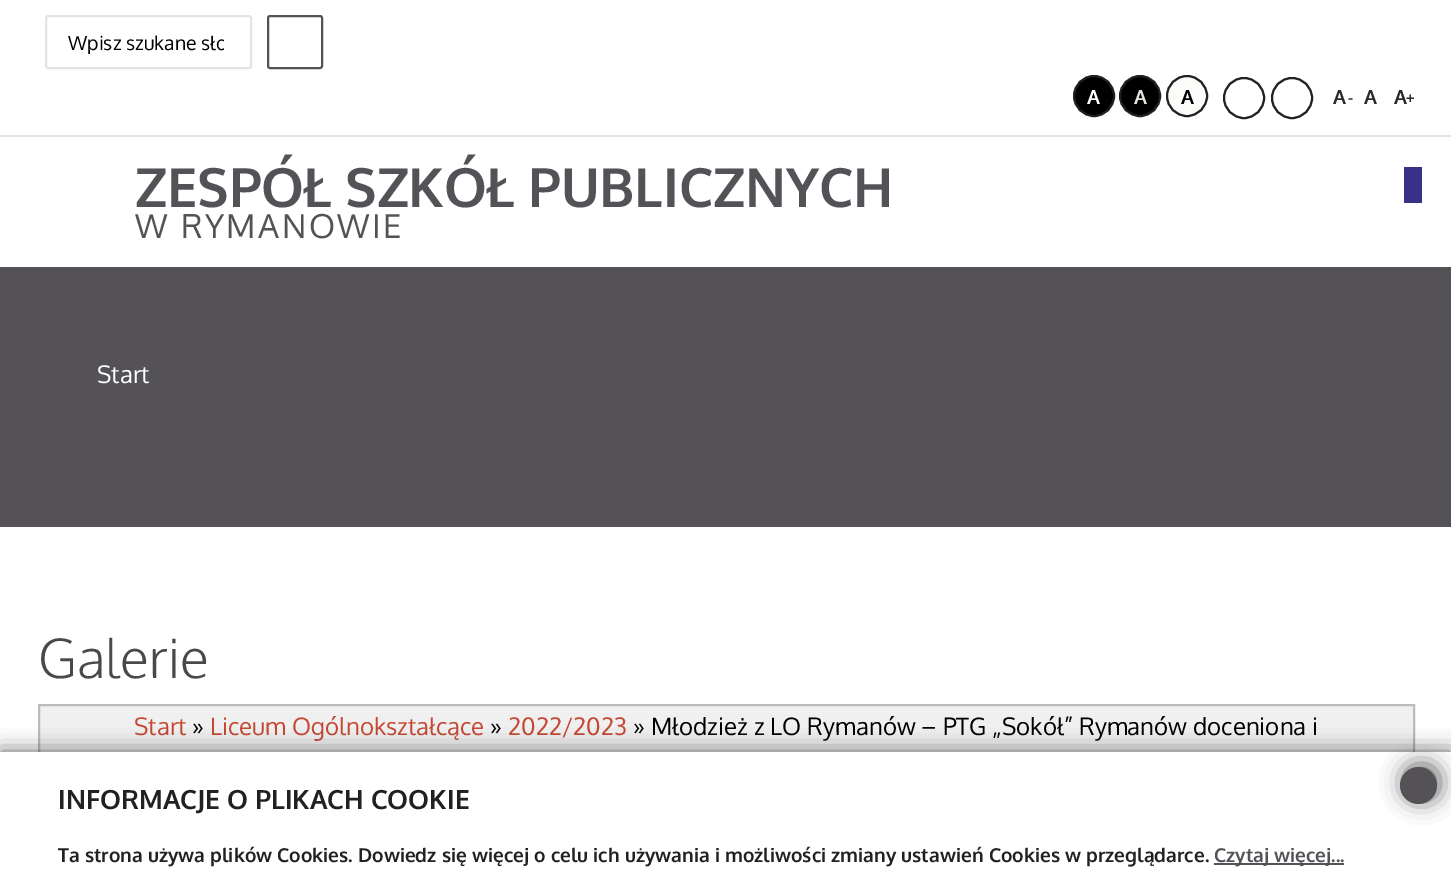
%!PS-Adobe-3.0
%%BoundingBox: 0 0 1451 896
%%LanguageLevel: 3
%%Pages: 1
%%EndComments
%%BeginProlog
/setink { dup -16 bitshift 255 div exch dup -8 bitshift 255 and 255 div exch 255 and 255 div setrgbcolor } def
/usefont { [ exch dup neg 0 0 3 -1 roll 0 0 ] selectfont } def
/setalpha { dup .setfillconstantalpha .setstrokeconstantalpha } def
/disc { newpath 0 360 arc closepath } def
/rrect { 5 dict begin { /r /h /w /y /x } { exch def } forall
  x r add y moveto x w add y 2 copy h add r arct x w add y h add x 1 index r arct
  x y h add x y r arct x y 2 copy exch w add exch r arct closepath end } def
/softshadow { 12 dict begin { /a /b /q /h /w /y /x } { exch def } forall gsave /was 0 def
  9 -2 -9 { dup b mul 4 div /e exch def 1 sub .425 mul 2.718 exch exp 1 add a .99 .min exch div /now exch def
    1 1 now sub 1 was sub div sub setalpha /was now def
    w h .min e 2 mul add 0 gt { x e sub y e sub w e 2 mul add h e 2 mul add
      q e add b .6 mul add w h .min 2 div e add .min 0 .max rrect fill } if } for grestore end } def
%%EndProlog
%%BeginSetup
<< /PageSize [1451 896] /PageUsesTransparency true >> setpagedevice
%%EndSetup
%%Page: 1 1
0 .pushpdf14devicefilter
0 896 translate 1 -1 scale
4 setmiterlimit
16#FFFFFF setink
0 0 1451 896 rectfill
16#E2E2E2 setink
0 135 1451 2 rectfill
16#E4E4E4 setink
2 setlinewidth
46 16 205 52 2 rrect stroke
gsave
68 30 156 24 rectclip
/Oxygen-Regular 19.5 usefont
16#000000 setink
68 50 moveto (Wpisz szukane sło) show
grestore
16#555257 setink
268 16 54 52 2 rrect stroke
16#000000 setink
1094 96 20 disc gsave fill grestore
16#212121 setink
stroke
/Oxygen-Bold 19.5 usefont
16#FFFFFF setink
1087 104 moveto (A) show
16#000000 setink
1140 96 20 disc gsave fill grestore
16#212121 setink
stroke
16#E8E5DF setink
1134 104 moveto (A) show
16#FBFBF9 setink
1187 96 20 disc gsave fill grestore
16#212121 setink
stroke
16#000000 setink
1181 104 moveto (A) show
16#212121 setink
1244 98 20 disc stroke
1292 98 20 disc stroke
16#292929 setink
1333 104 moveto (A) show
/Oxygen-Bold 15 usefont
1348 103 moveto (-) show
/Oxygen-Bold 19.5 usefont
1364 104 moveto (A) show
1394 104 moveto (A) show
/Oxygen-Bold 15 usefont
1406 103 moveto (+) show
/Oxygen-Bold 54 usefont
16#555257 setink
135 207 moveto (ZESPÓŁ SZKÓŁ PUBLICZNYCH) show
/Oxygen-Regular 33 usefont
135 238 moveto 2.5 0 (W RYMANOWIE) ashow
16#393185 setink
1404 167 18 36 rectfill
16#555257 setink
0 267 1451 260 rectfill
/Oxygen-Regular 24 usefont
16#FFFFFF setink
97 383 moveto (Start) show
/Oxygen-Light 54 usefont
16#494949 setink
38 678 moveto (Galerie) show
16#F0F0F0 setink
40 706 1373 46 rectfill
16#BBBBBB setink
39 705 1375 82 rectstroke
/Oxygen-Regular 24 usefont
16#C64934 setink
134 735 moveto (Start) show
16#000000 setink
192 735 moveto (») show
16#C64934 setink
210 735 moveto (Liceum Ogólnokształcące) show
16#000000 setink
490 735 moveto (») show
16#C64934 setink
508 735 moveto (2022/2023) show
16#000000 setink
633 735 moveto (» Młodzież z LO Rymanów – PTG „Sokół” Rymanów doceniona i) show
16#323232 setink
0 752 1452 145 0 11 0.75 softshadow
16#FFFFFF setink
0 752 1451 144 rectfill
/Oxygen-Bold 26.4 usefont
16#212121 setink
58 809 moveto (INFORMACJE O PLIKACH COOKIE) show
/Oxygen-Bold 19.2 usefont
58 862 moveto (Ta strona używa plików Cookies. Dowiedz się więcej o celu ich używania i możliwości zmiany ustawień Cookies w przeglądarce.) show
16#555257 setink
1214 863 130 2 rectfill
1214 862 moveto (Czytaj więcej...) show
16#323232 setink
1403 764 37 37 18.5 11 0.75 softshadow
16#555257 setink
1418.5 785.5 18.5 disc fill
.poppdf14devicefilter showpage
%%EOF
